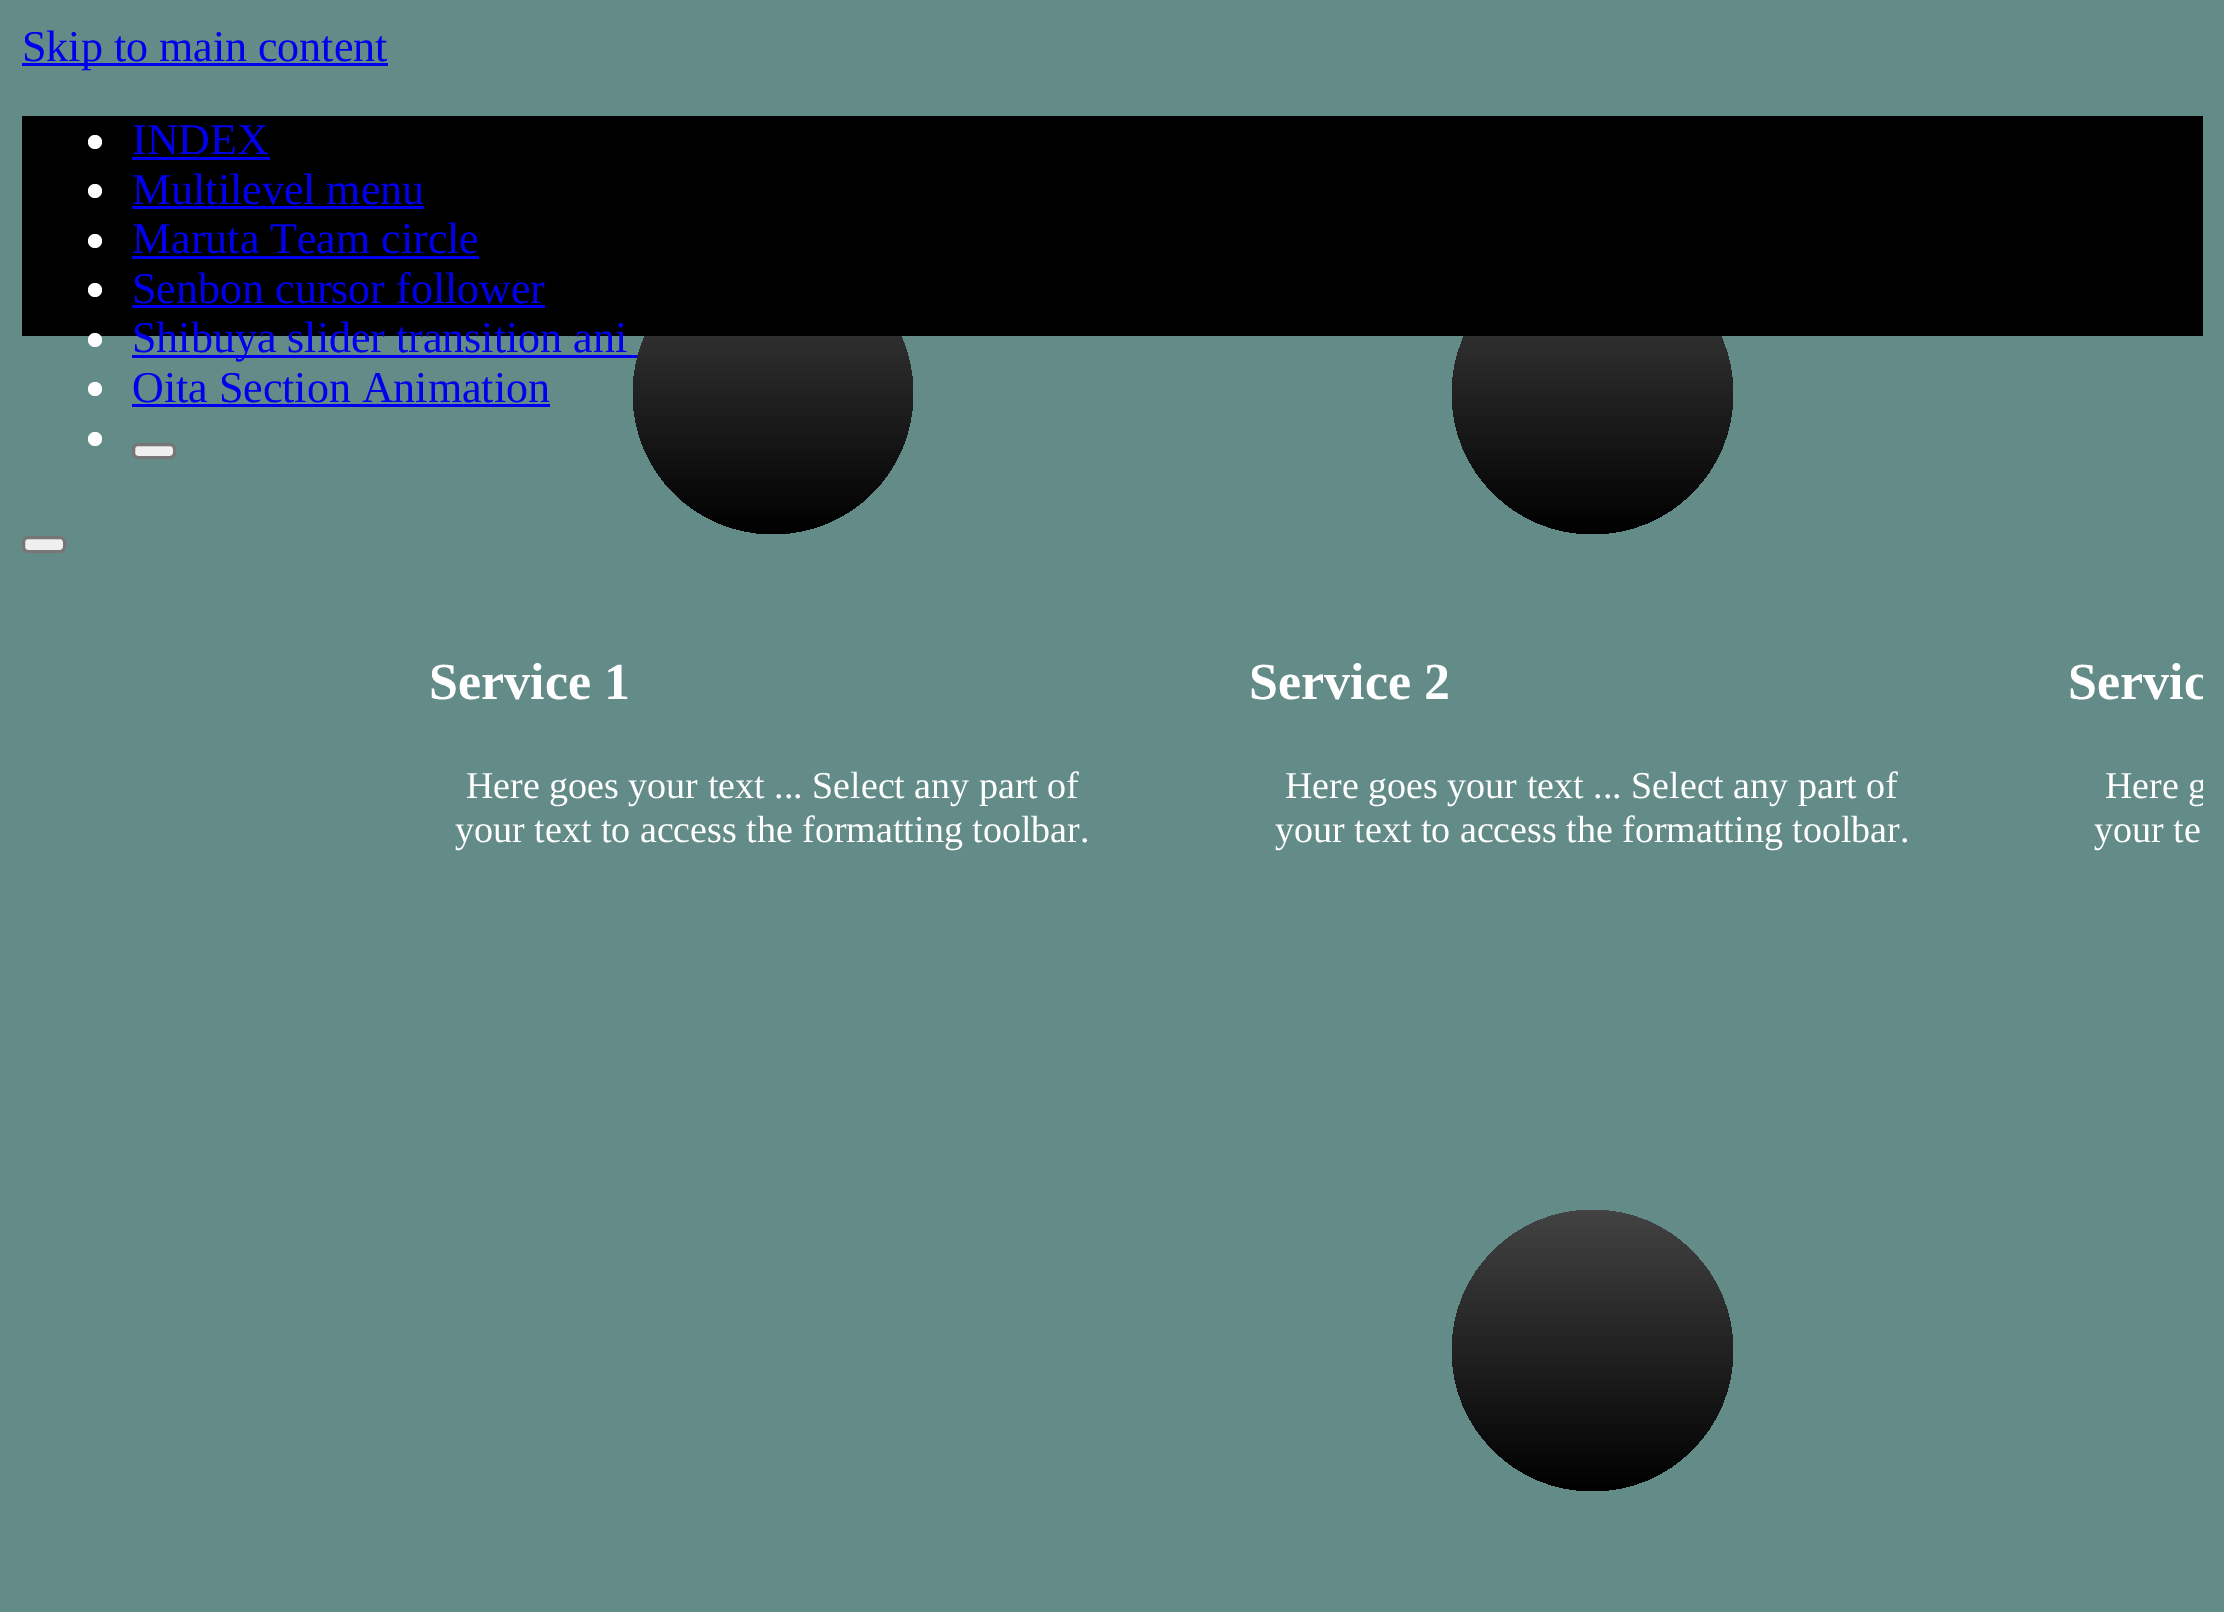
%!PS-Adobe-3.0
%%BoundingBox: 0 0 2224 1612
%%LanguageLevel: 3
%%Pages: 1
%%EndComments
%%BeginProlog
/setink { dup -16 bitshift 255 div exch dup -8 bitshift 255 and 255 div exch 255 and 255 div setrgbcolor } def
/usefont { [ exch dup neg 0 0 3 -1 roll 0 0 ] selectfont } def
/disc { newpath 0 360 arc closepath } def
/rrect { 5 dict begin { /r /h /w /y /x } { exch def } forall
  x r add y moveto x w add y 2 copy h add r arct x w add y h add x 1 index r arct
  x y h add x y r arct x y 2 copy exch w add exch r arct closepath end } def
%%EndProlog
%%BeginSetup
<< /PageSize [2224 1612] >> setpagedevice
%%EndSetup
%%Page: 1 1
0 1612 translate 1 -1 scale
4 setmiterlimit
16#638C88 setink
0 0 2224 1612 rectfill
16#0000EE setink
22 63 366 3 rectfill
/LiberationSerif-Regular 44 usefont
22 61 moveto (Skip to main content) show
16#000000 setink
22 116 2181 220 rectfill
16#FFFFFF setink
95 142 7 disc fill
16#0000EE setink
132 154 moveto (INDEX) show
132 157 138 3 rectfill
16#FFFFFF setink
95 191 7 disc fill
16#0000EE setink
132 204 moveto (Multilevel menu) show
132 206 292 3 rectfill
16#FFFFFF setink
95 241 7 disc fill
16#0000EE setink
132 253 moveto (Maruta Team circle) show
132 256 347 3 rectfill
16#FFFFFF setink
95 290 7 disc fill
16#0000EE setink
132 303 moveto (Senbon cursor follower) show
132 305 413 3 rectfill
16#FFFFFF setink
95 340 7 disc fill
16#0000EE setink
132 355 507 3 rectfill
132 352 moveto (Shibuya slider transition ani) show
16#FFFFFF setink
95 389 7 disc fill
16#0000EE setink
132 402 moveto (Oita Section Animation) show
132 404 418 3 rectfill
16#FFFFFF setink
95 439 7 disc fill
16#EFEFEF setink
133.5 444.5 41 13 4.5 rrect gsave fill grestore
16#767676 setink
3 setlinewidth
stroke
16#EFEFEF setink
23.5 537.5 41 14 4.5 rrect gsave fill grestore
16#767676 setink
stroke
gsave
22 336 2181 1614 rectclip
gsave 633 253 280 281 140 rrect clip newpath
<< /ShadingType 2 /ColorSpace /DeviceRGB /Coords [773 534 773 253] /Extend [true true] /Function << /FunctionType 2 /Domain [0 1] /C0 [0 0 0] /C1 [0.263 0.263 0.263] /N 1 >> >> shfill grestore
grestore
/LiberationSerif-Bold 52 usefont
16#FFFFFF setink
429 699 moveto (Service 1) show
/LiberationSerif-Regular 38 usefont
466 798 moveto (Here goes your text ... Select any part of) show
455 842 moveto (your text to access the formatting toolbar.) show
gsave
22 336 2181 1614 rectclip
gsave 1592.5 393.5 140.5 disc clip newpath
<< /ShadingType 2 /ColorSpace /DeviceRGB /Coords [1592 534 1592 253] /Extend [true true] /Function << /FunctionType 2 /Domain [0 1] /C0 [0 0 0] /C1 [0.263 0.263 0.263] /N 1 >> >> shfill grestore
grestore
/LiberationSerif-Bold 52 usefont
1249 699 moveto (Service 2) show
/LiberationSerif-Regular 38 usefont
1285 798 moveto (Here goes your text ... Select any part of) show
1275 842 moveto (your text to access the formatting toolbar.) show
gsave
22 336 2181 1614 rectclip
/LiberationSerif-Bold 52 usefont
2068 699 moveto (Servic) show
/LiberationSerif-Regular 38 usefont
2105 798 moveto (Here g) show
grestore
2094 842 moveto (your te) show
gsave 1592.5 1350.5 140.5 disc clip newpath
<< /ShadingType 2 /ColorSpace /DeviceRGB /Coords [1592 1491 1592 1210] /Extend [true true] /Function << /FunctionType 2 /Domain [0 1] /C0 [0 0 0] /C1 [0.263 0.263 0.263] /N 1 >> >> shfill grestore
showpage
%%EOF
